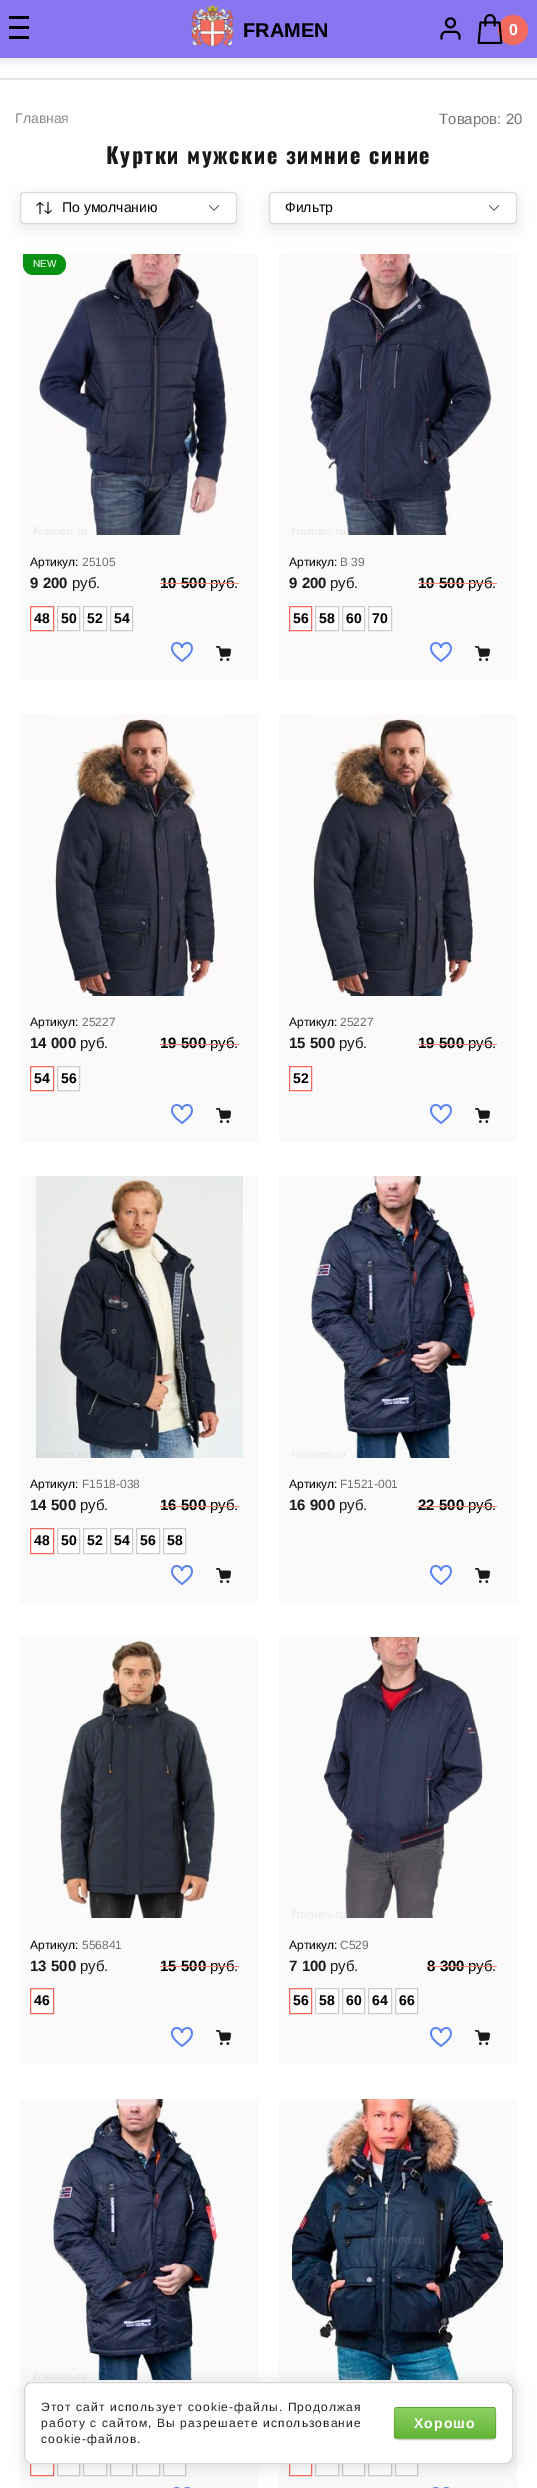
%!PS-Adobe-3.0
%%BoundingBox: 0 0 537 2488
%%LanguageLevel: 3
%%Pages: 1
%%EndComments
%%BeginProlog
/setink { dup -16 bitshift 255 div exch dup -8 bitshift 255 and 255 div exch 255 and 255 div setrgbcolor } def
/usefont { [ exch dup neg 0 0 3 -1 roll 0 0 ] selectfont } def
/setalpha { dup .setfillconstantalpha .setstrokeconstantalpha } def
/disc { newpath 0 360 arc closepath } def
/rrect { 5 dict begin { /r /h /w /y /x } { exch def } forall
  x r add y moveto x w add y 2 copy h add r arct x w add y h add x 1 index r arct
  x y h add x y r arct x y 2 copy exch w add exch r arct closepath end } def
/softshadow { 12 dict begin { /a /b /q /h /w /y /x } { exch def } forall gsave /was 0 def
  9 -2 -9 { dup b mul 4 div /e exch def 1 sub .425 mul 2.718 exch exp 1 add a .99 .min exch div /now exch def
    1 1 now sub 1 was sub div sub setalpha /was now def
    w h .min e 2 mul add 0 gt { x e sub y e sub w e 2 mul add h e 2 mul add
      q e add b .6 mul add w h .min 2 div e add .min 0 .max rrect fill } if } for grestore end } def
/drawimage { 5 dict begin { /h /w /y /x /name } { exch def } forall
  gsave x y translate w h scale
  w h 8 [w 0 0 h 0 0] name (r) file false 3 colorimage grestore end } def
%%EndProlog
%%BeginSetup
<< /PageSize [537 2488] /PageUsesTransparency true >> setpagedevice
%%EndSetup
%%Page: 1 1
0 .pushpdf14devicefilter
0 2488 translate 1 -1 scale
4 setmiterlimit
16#FFFFFF setink
0 0 537 2488 rectfill
16#E6E6E6 setink
0 78 537 2 rectfill
16#000000 setink
0 0 537 58 0 6.5 0.15 softshadow
[
    [0 0 537 58 16#8875F0]
    [9 16 20 3 16#000000]
    [9 26 20 3 16#000000]
    [9 36 20 3 16#000000]
] { aload pop setink rectfill } forall
(img1.raw) 191 4 43 42 drawimage
/Arimo-Bold 20 usefont
243 37 moveto (FRAMEN) show
(img2.raw) 440 17 21 23 drawimage
16#F36A5E setink
513 30 15 disc fill
(img3.raw) 477 14 26 30 drawimage
/Arimo-Bold 16 usefont
16#FFFFFF setink
509 35 moveto (0) show
/Arimo-Regular 14 usefont
16#888888 setink
15 123 moveto (Главная) show
/Arimo-Regular 15 usefont
16#747275 setink
439 124 moveto (Товаров: 20) show
/Oswald-Bold 22 usefont
16#191919 setink
106 164 moveto 1.55 0 (Куртки мужские зимние синие) ashow
gsave
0 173 moveto 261 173 lineto 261 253 lineto 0 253 lineto closepath 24 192 moveto 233 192 lineto 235 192 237 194 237 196 curveto 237 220 lineto 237 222 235 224 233 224 curveto 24 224 lineto 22 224 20 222 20 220 curveto 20 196 lineto 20 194 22 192 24 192 curveto closepath eoclip newpath
16#000000 setink
20 197 217 32 4 7.5 0.08 softshadow
grestore
16#D9D9D9 setink
20.5 192.5 216 31 3.5 rrect stroke
(img4.raw) 36 202 16 12 drawimage
/Arimo-Regular 14 usefont
16#000000 setink
62 212 moveto (По умолчанию) show
(img5.raw) 209 205 10 6 drawimage
gsave
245 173 moveto 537 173 lineto 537 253 lineto 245 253 lineto closepath 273 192 moveto 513 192 lineto 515 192 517 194 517 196 curveto 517 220 lineto 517 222 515 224 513 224 curveto 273 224 lineto 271 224 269 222 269 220 curveto 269 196 lineto 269 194 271 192 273 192 curveto closepath eoclip newpath
269 197 248 32 4 7.5 0.08 softshadow
grestore
16#D9D9D9 setink
269.5 192.5 247 31 3.5 rrect stroke
16#000000 setink
285 212 moveto (Фильтр) show
(img5.raw) 489 205 10 6 drawimage
16#FAFAFA setink
20 254 239 426 rectfill
(img6.raw) 34 254 193 281 drawimage
16#099114 setink
23 254 moveto 55.5 254 lineto 61.5 254 66 258.5 66 264.5 curveto 66 270.5 61.5 275 55.5 275 curveto 33.5 275 lineto 27.5 275 23 270.5 23 264.5 curveto closepath fill
/Arimo-Regular 10 usefont
16#FFFFFF setink
33 267 moveto (NEW) show
/Arimo-Regular 12 usefont
16#000000 setink
30 566 moveto (Артикул:) show
16#6E6E6E setink
82 566 moveto (25105) show
/Arimo-Bold 15 usefont
16#191919 setink
30 588 moveto (9 200) show
/Arimo-Regular 15 usefont
72 588 moveto (руб.) show
/Arimo-Bold 15 usefont
16#000000 setink
160 588 moveto (10 500) show
/Arimo-Regular 15 usefont
210 588 moveto (руб.) show
16#FF836B setink
160 583 79 1 rectfill
16#FFFFFF setink
30.5 606.5 moveto 53.5 606.5 lineto 53.5 630.5 lineto 30.5 630.5 lineto closepath gsave fill grestore
16#F46A60 setink
stroke
/Arimo-Bold 14 usefont
16#000000 setink
34 623 moveto (48) show
16#FFFFFF setink
57.5 606.5 moveto 79.5 606.5 lineto 79.5 630.5 lineto 57.5 630.5 lineto closepath gsave fill grestore
16#CCCCCC setink
stroke
16#000000 setink
61 623 moveto (50) show
16#FFFFFF setink
83.5 606.5 moveto 106.5 606.5 lineto 106.5 630.5 lineto 83.5 630.5 lineto closepath gsave fill grestore
16#CCCCCC setink
stroke
16#000000 setink
87 623 moveto (52) show
16#FFFFFF setink
110.5 606.5 moveto 132.5 606.5 lineto 132.5 630.5 lineto 110.5 630.5 lineto closepath gsave fill grestore
16#CCCCCC setink
stroke
16#000000 setink
114 623 moveto (54) show
(img7.raw) 171 642 22 21 drawimage
(img8.raw) 216 646 15 15 drawimage
16#FAFAFA setink
279 254 238 426 rectfill
(img9.raw) 292 254 202 281 drawimage
/Arimo-Regular 12 usefont
16#000000 setink
289 566 moveto (Артикул:) show
16#6E6E6E setink
340 566 moveto (B 39) show
/Arimo-Bold 15 usefont
16#191919 setink
289 588 moveto (9 200) show
/Arimo-Regular 15 usefont
330 588 moveto (руб.) show
/Arimo-Bold 15 usefont
16#000000 setink
418 588 moveto (10 500) show
/Arimo-Regular 15 usefont
468 588 moveto (руб.) show
16#FF836B setink
418 583 79 1 rectfill
16#FFFFFF setink
289.5 606.5 moveto 311.5 606.5 lineto 311.5 630.5 lineto 289.5 630.5 lineto closepath gsave fill grestore
16#F46A60 setink
stroke
/Arimo-Bold 14 usefont
16#000000 setink
293 623 moveto (56) show
16#FFFFFF setink
315.5 606.5 moveto 338.5 606.5 lineto 338.5 630.5 lineto 315.5 630.5 lineto closepath gsave fill grestore
16#CCCCCC setink
stroke
16#000000 setink
319 623 moveto (58) show
16#FFFFFF setink
342.5 606.5 moveto 364.5 606.5 lineto 364.5 630.5 lineto 342.5 630.5 lineto closepath gsave fill grestore
16#CCCCCC setink
stroke
16#000000 setink
346 623 moveto (60) show
16#FFFFFF setink
368.5 606.5 moveto 391.5 606.5 lineto 391.5 630.5 lineto 368.5 630.5 lineto closepath gsave fill grestore
16#CCCCCC setink
stroke
16#000000 setink
372 623 moveto (70) show
(img7.raw) 430 642 22 21 drawimage
(img8.raw) 475 646 15 15 drawimage
16#FAFAFA setink
20 714 239 428 rectfill
(img10.raw) 54 714 168 282 drawimage
/Arimo-Regular 12 usefont
16#000000 setink
30 1026 moveto (Артикул:) show
16#6E6E6E setink
82 1026 moveto (25227) show
/Arimo-Bold 15 usefont
16#191919 setink
30 1048 moveto (14 000) show
/Arimo-Regular 15 usefont
80 1048 moveto (руб.) show
/Arimo-Bold 15 usefont
16#000000 setink
160 1048 moveto (19 500) show
/Arimo-Regular 15 usefont
210 1048 moveto (руб.) show
16#FF836B setink
160 1044 79 1 rectfill
16#FFFFFF setink
30.5 1066.5 moveto 53.5 1066.5 lineto 53.5 1090.5 lineto 30.5 1090.5 lineto closepath gsave fill grestore
16#F46A60 setink
stroke
/Arimo-Bold 14 usefont
16#000000 setink
34 1083 moveto (54) show
16#FFFFFF setink
57.5 1066.5 moveto 79.5 1066.5 lineto 79.5 1090.5 lineto 57.5 1090.5 lineto closepath gsave fill grestore
16#CCCCCC setink
stroke
16#000000 setink
61 1083 moveto (56) show
(img7.raw) 171 1104 22 21 drawimage
(img8.raw) 216 1108 15 15 drawimage
16#FAFAFA setink
279 714 238 428 rectfill
(img10.raw) 312 714 168 282 drawimage
/Arimo-Regular 12 usefont
16#000000 setink
289 1026 moveto (Артикул:) show
16#6E6E6E setink
340 1026 moveto (25227) show
/Arimo-Bold 15 usefont
16#191919 setink
289 1048 moveto (15 500) show
/Arimo-Regular 15 usefont
339 1048 moveto (руб.) show
/Arimo-Bold 15 usefont
16#000000 setink
418 1048 moveto (19 500) show
/Arimo-Regular 15 usefont
468 1048 moveto (руб.) show
16#FF836B setink
418 1044 79 1 rectfill
16#FFFFFF setink
289.5 1066.5 moveto 311.5 1066.5 lineto 311.5 1090.5 lineto 289.5 1090.5 lineto closepath gsave fill grestore
16#F46A60 setink
stroke
/Arimo-Bold 14 usefont
16#000000 setink
293 1083 moveto (52) show
(img7.raw) 430 1104 22 21 drawimage
(img8.raw) 475 1108 15 15 drawimage
16#FAFAFA setink
20 1176 239 427 rectfill
(img11.raw) 36 1176 207 282 drawimage
/Arimo-Regular 12 usefont
16#000000 setink
30 1488 moveto (Артикул:) show
16#6E6E6E setink
82 1488 moveto (F1518-038) show
/Arimo-Bold 15 usefont
16#191919 setink
30 1510 moveto (14 500) show
/Arimo-Regular 15 usefont
80 1510 moveto (руб.) show
/Arimo-Bold 15 usefont
16#000000 setink
160 1510 moveto (16 500) show
/Arimo-Regular 15 usefont
210 1510 moveto (руб.) show
16#FF836B setink
160 1506 79 1 rectfill
16#FFFFFF setink
30.5 1528.5 moveto 53.5 1528.5 lineto 53.5 1553.5 lineto 30.5 1553.5 lineto closepath gsave fill grestore
16#F46A60 setink
stroke
/Arimo-Bold 14 usefont
16#000000 setink
34 1545 moveto (48) show
16#FFFFFF setink
57.5 1528.5 moveto 79.5 1528.5 lineto 79.5 1553.5 lineto 57.5 1553.5 lineto closepath gsave fill grestore
16#CCCCCC setink
stroke
16#000000 setink
61 1545 moveto (50) show
16#FFFFFF setink
83.5 1528.5 moveto 106.5 1528.5 lineto 106.5 1553.5 lineto 83.5 1553.5 lineto closepath gsave fill grestore
16#CCCCCC setink
stroke
16#000000 setink
87 1545 moveto (52) show
16#FFFFFF setink
110.5 1528.5 moveto 132.5 1528.5 lineto 132.5 1553.5 lineto 110.5 1553.5 lineto closepath gsave fill grestore
16#CCCCCC setink
stroke
16#000000 setink
114 1545 moveto (54) show
16#FFFFFF setink
136.5 1528.5 moveto 159.5 1528.5 lineto 159.5 1553.5 lineto 136.5 1553.5 lineto closepath gsave fill grestore
16#CCCCCC setink
stroke
16#000000 setink
140 1545 moveto (56) show
16#FFFFFF setink
163.5 1528.5 moveto 185.5 1528.5 lineto 185.5 1553.5 lineto 163.5 1553.5 lineto closepath gsave fill grestore
16#CCCCCC setink
stroke
16#000000 setink
167 1545 moveto (58) show
(img7.raw) 171 1565 22 21 drawimage
(img8.raw) 216 1568 15 15 drawimage
16#FAFAFA setink
279 1176 238 427 rectfill
(img12.raw) 292 1176 188 282 drawimage
/Arimo-Regular 12 usefont
16#000000 setink
289 1488 moveto (Артикул:) show
16#6E6E6E setink
340 1488 moveto (F1521-001) show
/Arimo-Bold 15 usefont
16#191919 setink
289 1510 moveto (16 900) show
/Arimo-Regular 15 usefont
339 1510 moveto (руб.) show
/Arimo-Bold 15 usefont
16#000000 setink
418 1510 moveto (22 500) show
/Arimo-Regular 15 usefont
468 1510 moveto (руб.) show
16#FF836B setink
418 1506 79 1 rectfill
(img7.raw) 430 1565 22 21 drawimage
(img8.raw) 475 1568 15 15 drawimage
16#FAFAFA setink
20 1637 239 428 rectfill
(img13.raw) 60 1640 155 278 drawimage
/Arimo-Regular 12 usefont
16#000000 setink
30 1949 moveto (Артикул:) show
16#6E6E6E setink
82 1949 moveto (556841) show
/Arimo-Bold 15 usefont
16#191919 setink
30 1971 moveto (13 500) show
/Arimo-Regular 15 usefont
80 1971 moveto (руб.) show
/Arimo-Bold 15 usefont
16#000000 setink
160 1971 moveto (15 500) show
/Arimo-Regular 15 usefont
210 1971 moveto (руб.) show
16#FF836B setink
160 1966 79 1 rectfill
16#FFFFFF setink
30.5 1988.5 moveto 53.5 1988.5 lineto 53.5 2013.5 lineto 30.5 2013.5 lineto closepath gsave fill grestore
16#F46A60 setink
stroke
/Arimo-Bold 14 usefont
16#000000 setink
34 2005 moveto (46) show
(img7.raw) 171 2027 22 21 drawimage
(img8.raw) 216 2030 15 15 drawimage
16#FAFAFA setink
279 1637 238 428 rectfill
(img14.raw) 292 1637 191 281 drawimage
/Arimo-Regular 12 usefont
16#000000 setink
289 1949 moveto (Артикул:) show
16#6E6E6E setink
340 1949 moveto (C529) show
/Arimo-Bold 15 usefont
16#191919 setink
289 1971 moveto (7 100) show
/Arimo-Regular 15 usefont
330 1971 moveto (руб.) show
/Arimo-Bold 15 usefont
16#000000 setink
427 1971 moveto (8 300) show
/Arimo-Regular 15 usefont
468 1971 moveto (руб.) show
16#FF836B setink
427 1966 70 1 rectfill
16#FFFFFF setink
289.5 1988.5 moveto 311.5 1988.5 lineto 311.5 2013.5 lineto 289.5 2013.5 lineto closepath gsave fill grestore
16#F46A60 setink
stroke
/Arimo-Bold 14 usefont
16#000000 setink
293 2005 moveto (56) show
16#FFFFFF setink
315.5 1988.5 moveto 338.5 1988.5 lineto 338.5 2013.5 lineto 315.5 2013.5 lineto closepath gsave fill grestore
16#CCCCCC setink
stroke
16#000000 setink
319 2005 moveto (58) show
16#FFFFFF setink
342.5 1988.5 moveto 364.5 1988.5 lineto 364.5 2013.5 lineto 342.5 2013.5 lineto closepath gsave fill grestore
16#CCCCCC setink
stroke
16#000000 setink
346 2005 moveto (60) show
16#FFFFFF setink
368.5 1988.5 moveto 391.5 1988.5 lineto 391.5 2013.5 lineto 368.5 2013.5 lineto closepath gsave fill grestore
16#CCCCCC setink
stroke
16#000000 setink
372 2005 moveto (64) show
16#FFFFFF setink
395.5 1988.5 moveto 417.5 1988.5 lineto 417.5 2013.5 lineto 395.5 2013.5 lineto closepath gsave fill grestore
16#CCCCCC setink
stroke
16#000000 setink
399 2005 moveto (66) show
(img7.raw) 430 2027 22 21 drawimage
(img8.raw) 475 2030 15 15 drawimage
16#FAFAFA setink
20 2099 239 389 rectfill
(img15.raw) 34 2099 188 281 drawimage
16#FFFFFF setink
31 2463 22 12 rectfill
16#F46A60 setink
30.5 2451.5 23 24 rectstroke
16#FFFFFF setink
58 2464 21 11 rectfill
16#CCCCCC setink
57.5 2451.5 22 24 rectstroke
16#FFFFFF setink
84 2464 22 11 rectfill
16#CCCCCC setink
83.5 2451.5 23 24 rectstroke
16#FFFFFF setink
111 2464 21 11 rectfill
16#CCCCCC setink
110.5 2451.5 22 24 rectstroke
16#FFFFFF setink
137 2464 22 11 rectfill
16#CCCCCC setink
136.5 2451.5 23 24 rectstroke
16#FFFFFF setink
164 2464 21 11 rectfill
16#CCCCCC setink
163.5 2451.5 22 24 rectstroke
(img16.raw) 173 2487 18 1 drawimage
16#FAFAFA setink
279 2099 238 389 rectfill
(img17.raw) 292 2099 211 281 drawimage
16#FFFFFF setink
290 2464 21 11 rectfill
16#F46A60 setink
289.5 2451.5 22 24 rectstroke
16#FFFFFF setink
316 2464 22 11 rectfill
16#CCCCCC setink
315.5 2451.5 23 24 rectstroke
16#FFFFFF setink
343 2464 21 11 rectfill
16#CCCCCC setink
342.5 2451.5 22 24 rectstroke
16#FFFFFF setink
369 2464 22 11 rectfill
16#CCCCCC setink
368.5 2451.5 23 24 rectstroke
16#FFFFFF setink
396 2464 21 11 rectfill
16#CCCCCC setink
395.5 2451.5 22 24 rectstroke
(img16.raw) 432 2487 18 1 drawimage
16#000000 setink
26 2384 489 82 8 9 0.14 softshadow
16#FFFFFF setink
24.5 2382.5 488 81 7.5 rrect gsave fill grestore
16#D6D6D6 setink
stroke
/LiberationSans-Regular 12 usefont
16#212121 setink
41 2411 moveto 1.1 0 (Этот сайт использует cookie-файлы. Продолжая) ashow
41 2427 moveto 1.1 0 (работу с сайтом, Вы разрешаете использование) ashow
41 2443 moveto 1.1 0 (cookie-файлов.) ashow
16#000000 setink
394 2408 102 32 4 0.5 0.2 softshadow
gsave
394 2407 102 32 4 rrect clip newpath
gsave 394 2407 moveto 496 2407 lineto 496 2408 lineto 394 2408 lineto closepath clip newpath
<< /ShadingType 2 /ColorSpace /DeviceRGB /Coords [445 2378 445 2408] /Extend [true true] /Function << /FunctionType 2 /Domain [0 1] /C0 [0.549 0.82 0.392] /C1 [0.388 0.706 0.208] /N 1 >> >> shfill grestore
gsave 394 2408 moveto 496 2408 lineto 496 2438 lineto 394 2438 lineto closepath clip newpath
<< /ShadingType 2 /ColorSpace /DeviceRGB /Coords [445 2408 445 2438] /Extend [true true] /Function << /FunctionType 2 /Domain [0 1] /C0 [0.549 0.82 0.392] /C1 [0.388 0.706 0.208] /N 1 >> >> shfill grestore
gsave 394 2438 moveto 496 2438 lineto 496 2439 lineto 394 2439 lineto closepath clip newpath
<< /ShadingType 2 /ColorSpace /DeviceRGB /Coords [445 2438 445 2468] /Extend [true true] /Function << /FunctionType 2 /Domain [0 1] /C0 [0.549 0.82 0.392] /C1 [0.388 0.706 0.208] /N 1 >> >> shfill grestore
grestore
0.1 setalpha
394.5 2407.5 101 31 3.5 rrect stroke
/Arimo-Bold 14 usefont
1 setalpha
16#FFFFFF setink
414 2428 moveto 1.1 0 (Хорошо) ashow
.poppdf14devicefilter showpage
%%EOF
